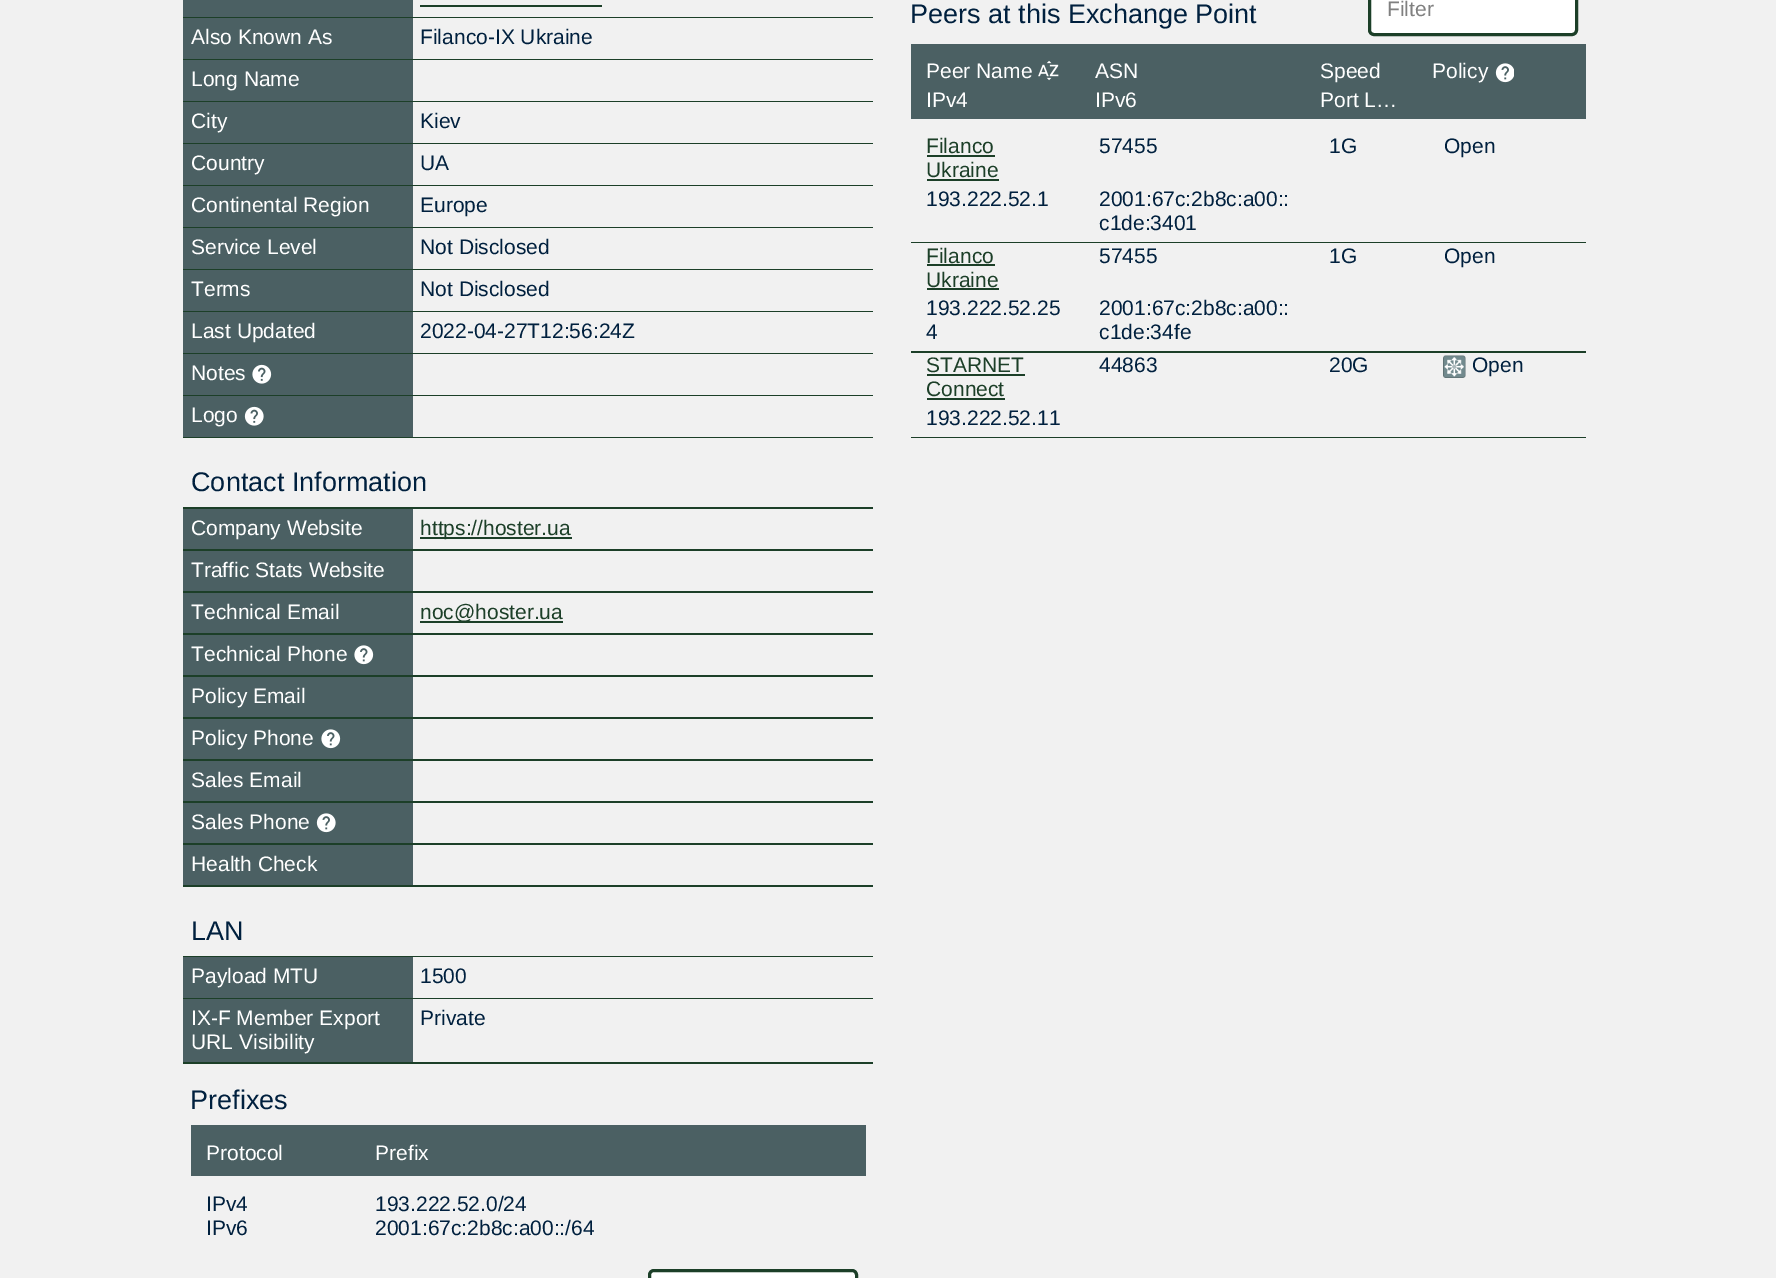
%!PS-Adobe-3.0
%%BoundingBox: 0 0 1776 1278
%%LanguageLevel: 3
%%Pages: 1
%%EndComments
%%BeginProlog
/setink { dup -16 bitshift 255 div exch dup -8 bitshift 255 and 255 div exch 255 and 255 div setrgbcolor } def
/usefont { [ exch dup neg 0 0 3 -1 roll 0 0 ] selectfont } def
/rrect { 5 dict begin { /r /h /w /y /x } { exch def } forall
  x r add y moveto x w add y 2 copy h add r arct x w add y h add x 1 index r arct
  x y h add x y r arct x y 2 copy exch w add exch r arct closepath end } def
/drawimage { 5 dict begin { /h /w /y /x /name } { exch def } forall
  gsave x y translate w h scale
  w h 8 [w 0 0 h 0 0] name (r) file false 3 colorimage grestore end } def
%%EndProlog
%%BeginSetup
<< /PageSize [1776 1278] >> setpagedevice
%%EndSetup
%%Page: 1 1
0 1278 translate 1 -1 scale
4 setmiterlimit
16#F1F1F1 setink
0 0 1776 1278 rectfill
[
    [183 17 690 1 16#1C3F28]
    [183 0 230 17 16#4B6063]
    [420 5 182 2 16#1C3F28]
    [183 59 690 1 16#1C3F28]
    [183 18 230 41 16#4B6063]
] { aload pop setink rectfill } forall
/LiberationSans-Regular 21 usefont
16#FFFFFF setink
191 44 moveto (Also Known As) show
16#00203E setink
420 44 moveto (Filanco-IX Ukraine) show
16#1C3F28 setink
183 101 690 1 rectfill
16#4B6063 setink
183 60 230 41 rectfill
16#FFFFFF setink
191 86 moveto (Long Name) show
16#1C3F28 setink
183 143 690 1 rectfill
16#4B6063 setink
183 102 230 41 rectfill
16#FFFFFF setink
191 128 moveto (City) show
16#00203E setink
420 128 moveto (Kiev) show
16#1C3F28 setink
183 185 690 1 rectfill
16#4B6063 setink
183 144 230 41 rectfill
16#FFFFFF setink
191 170 moveto (Country) show
16#00203E setink
420 170 moveto (UA) show
16#1C3F28 setink
183 227 690 1 rectfill
16#4B6063 setink
183 186 230 41 rectfill
16#FFFFFF setink
191 212 moveto (Continental Region) show
16#00203E setink
420 212 moveto (Europe) show
16#1C3F28 setink
183 269 690 1 rectfill
16#4B6063 setink
183 228 230 41 rectfill
16#FFFFFF setink
191 254 moveto (Service Level) show
16#00203E setink
420 254 moveto (Not Disclosed) show
16#1C3F28 setink
183 311 690 1 rectfill
16#4B6063 setink
183 270 230 41 rectfill
16#FFFFFF setink
191 296 moveto (Terms) show
16#00203E setink
420 296 moveto (Not Disclosed) show
16#1C3F28 setink
183 353 690 1 rectfill
16#4B6063 setink
183 312 230 41 rectfill
16#FFFFFF setink
191 338 moveto (Last Updated) show
16#00203E setink
420 338 moveto (2022-04-27T12:56:24Z) show
16#1C3F28 setink
183 395 690 1 rectfill
16#4B6063 setink
183 354 230 41 rectfill
16#FFFFFF setink
191 380 moveto (Notes) show
(img1.raw) 252 364 20 20 drawimage
16#1C3F28 setink
183 437 690 1 rectfill
16#4B6063 setink
183 396 230 41 rectfill
16#FFFFFF setink
191 422 moveto (Logo) show
(img2.raw) 244 406 20 20 drawimage
16#1C3F28 setink
183 507 690 2 rectfill
/LiberationSans-Regular 27 usefont
16#00203E setink
191 491 moveto (Contact Information) show
16#1C3F28 setink
183 549 690 2 rectfill
16#4B6063 setink
183 509 230 40 rectfill
/LiberationSans-Regular 21 usefont
16#FFFFFF setink
191 535 moveto (Company Website) show
16#1C3F28 setink
420 537 152 2 rectfill
420 535 moveto (https://hoster.ua) show
183 591 690 2 rectfill
16#4B6063 setink
183 551 230 40 rectfill
16#FFFFFF setink
191 577 moveto (Traffic Stats Website) show
16#1C3F28 setink
183 633 690 2 rectfill
16#4B6063 setink
183 593 230 40 rectfill
16#FFFFFF setink
191 619 moveto (Technical Email) show
16#1C3F28 setink
420 621 143 2 rectfill
420 619 moveto (noc@hoster.ua) show
183 675 690 2 rectfill
16#4B6063 setink
183 635 230 40 rectfill
16#FFFFFF setink
191 661 moveto (Technical Phone) show
(img3.raw) 354 645 20 20 drawimage
16#1C3F28 setink
183 717 690 2 rectfill
16#4B6063 setink
183 677 230 40 rectfill
16#FFFFFF setink
191 703 moveto (Policy Email) show
16#1C3F28 setink
183 759 690 2 rectfill
16#4B6063 setink
183 719 230 40 rectfill
16#FFFFFF setink
191 745 moveto (Policy Phone) show
(img3.raw) 321 729 20 20 drawimage
16#1C3F28 setink
183 801 690 2 rectfill
16#4B6063 setink
183 761 230 40 rectfill
16#FFFFFF setink
191 787 moveto (Sales Email) show
16#1C3F28 setink
183 843 690 2 rectfill
16#4B6063 setink
183 803 230 40 rectfill
16#FFFFFF setink
191 829 moveto (Sales Phone) show
(img4.raw) 316 813 20 20 drawimage
16#1C3F28 setink
183 885 690 2 rectfill
16#4B6063 setink
183 845 230 40 rectfill
16#FFFFFF setink
191 871 moveto (Health Check) show
16#1C3F28 setink
183 956 690 1 rectfill
/LiberationSans-Regular 27 usefont
16#00203E setink
191 940 moveto (LAN) show
16#1C3F28 setink
183 998 690 1 rectfill
16#4B6063 setink
183 957 230 41 rectfill
/LiberationSans-Regular 21 usefont
16#FFFFFF setink
191 983 moveto (Payload MTU) show
16#00203E setink
420 983 moveto (1500) show
16#1C3F28 setink
183 1062 690 2 rectfill
16#4B6063 setink
183 999 230 63 rectfill
16#FFFFFF setink
191 1025 moveto (IX-F Member Export) show
191 1049 moveto (URL Visibility) show
16#00203E setink
420 1025 moveto (Private) show
/LiberationSans-Regular 27 usefont
190 1109 moveto (Prefixes) show
16#4B6063 setink
191 1125 675 51 rectfill
/LiberationSans-Regular 21 usefont
16#FFFFFF setink
206 1160 moveto (Protocol) show
375 1160 moveto (Prefix) show
16#00203E setink
[
    [(IPv4) 206 1211]
    [(193.222.52.0/24) 375 1211]
    [(IPv6) 206 1235]
    [(2001:67c:2b8c:a00::/64) 375 1235]
] { aload pop moveto show } forall
16#FFFFFF setink
651 1272 204 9 3 rrect fill
16#1C3F28 setink
3 setlinewidth
649.5 1270.5 207 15 4.5 rrect stroke
/LiberationSans-Regular 27 usefont
16#00203E setink
910 23 moveto (Peers at this Exchange Point) show
16#FFFFFF setink
1371 -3 204 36 3 rrect fill
16#1C3F28 setink
1369.5 -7.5 207 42 4.5 rrect stroke
/LiberationSans-Regular 21 usefont
16#808080 setink
1387 16 moveto (Filter) show
16#4B6063 setink
911 44 675 75 rectfill
16#FFFFFF setink
926 78 moveto (Peer Name) show
(img5.raw) 1038 60 21 21 drawimage
[
    [(IPv4) 926 107]
    [(ASN) 1095 78]
    [(IPv6) 1095 107]
    [(Speed) 1320 78]
    [(Port L…) 1320 107]
    [(Policy) 1432 78]
] { aload pop moveto show } forall
(img6.raw) 1495 63 19 20 drawimage
16#1C3F28 setink
911 242 675 1 rectfill
926 153 moveto (Filanco) show
927 155 68 2 rectfill
926 177 moveto (Ukraine) show
927 179 72 2 rectfill
16#00203E setink
[
    [(57455) 1099 153]
    [(1G) 1329 153]
    [(Open) 1444 153]
    [(193.222.52.1) 926 206]
    [(2001:67c:2b8c:a00::) 1099 206]
    [(c1de:3401) 1099 230]
] { aload pop moveto show } forall
16#1C3F28 setink
911 351 675 2 rectfill
926 263 moveto (Filanco) show
927 264 68 2 rectfill
926 287 moveto (Ukraine) show
927 288 72 2 rectfill
16#00203E setink
[
    [(57455) 1099 263]
    [(1G) 1329 263]
    [(Open) 1444 263]
    [(193.222.52.25) 926 315]
    [(4) 926 339]
    [(2001:67c:2b8c:a00::) 1099 315]
    [(c1de:34fe) 1099 339]
] { aload pop moveto show } forall
16#1C3F28 setink
911 437 675 1 rectfill
926 372 moveto (STARNET) show
927 374 98 2 rectfill
926 396 moveto (Connect) show
927 398 78 2 rectfill
16#00203E setink
1099 372 moveto (44863) show
1329 372 moveto (20G) show
(img7.raw) 1443 355 23 23 drawimage
1472 372 moveto (Open) show
926 425 moveto (193.222.52.11) show
showpage
%%EOF
